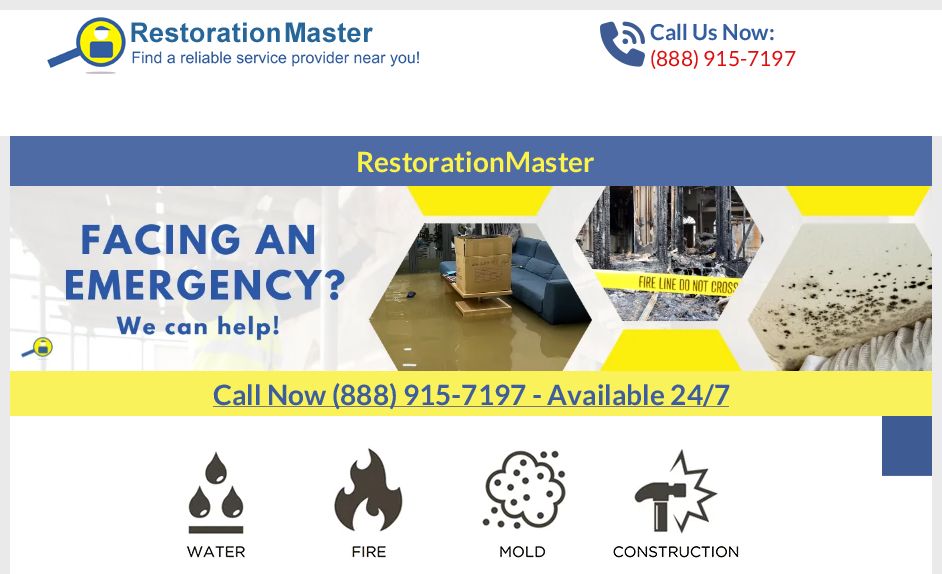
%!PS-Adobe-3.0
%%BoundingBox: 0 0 942 574
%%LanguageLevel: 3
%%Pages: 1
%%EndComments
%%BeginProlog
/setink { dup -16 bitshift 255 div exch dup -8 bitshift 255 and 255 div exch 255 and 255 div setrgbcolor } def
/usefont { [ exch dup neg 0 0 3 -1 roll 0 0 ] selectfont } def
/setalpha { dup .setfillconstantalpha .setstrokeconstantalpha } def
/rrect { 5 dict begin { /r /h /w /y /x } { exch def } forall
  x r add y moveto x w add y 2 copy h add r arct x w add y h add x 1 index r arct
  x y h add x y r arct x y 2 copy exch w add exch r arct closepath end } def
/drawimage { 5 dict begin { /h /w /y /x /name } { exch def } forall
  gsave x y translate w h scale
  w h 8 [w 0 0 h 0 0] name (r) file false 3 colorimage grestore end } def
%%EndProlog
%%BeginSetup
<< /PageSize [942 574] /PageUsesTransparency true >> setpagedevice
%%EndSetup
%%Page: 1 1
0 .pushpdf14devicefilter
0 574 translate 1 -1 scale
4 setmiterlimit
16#EAEAEA setink
0 0 942 574 rectfill
16#FFFFFF setink
0 10 942 126 rectfill
(img1.raw) 47 17 373 57 drawimage
(img2.raw) 600 21 45 46 drawimage
/Lato-Bold 22 usefont
16#325EA0 setink
650 40 moveto (Call Us Now:) show
/Lato-Regular 21 usefont
16#DF0F0F setink
650 66 moveto (\(888\) 915-7197) show
16#4E6BA6 setink
10 136 922 50 rectfill
/Lato-Bold 28 usefont
16#FBF34A setink
356 172 moveto (RestorationMaster) show
0.9 setalpha
10 371 922 46 1 rrect fill
1 setalpha
16#777777 setink
213 406 516 1 rectfill
16#3D5D9E setink
213 405 moveto (Call Now \(888\) 915-7197 - Available 24/7) show
(img3.raw) 10 186 922 185 drawimage
16#FFFFFF setink
10 416 922 158 rectfill
(img4.raw) 185 451 60 111 drawimage
(img5.raw) 334 446 70 116 drawimage
(img6.raw) 480 450 88 108 drawimage
(img7.raw) 613 449 128 109 drawimage
16#3E5B94 setink
882 416 50 59 rectfill
16#516B9F setink
882 475 50 1 rectfill
.poppdf14devicefilter showpage
%%EOF
